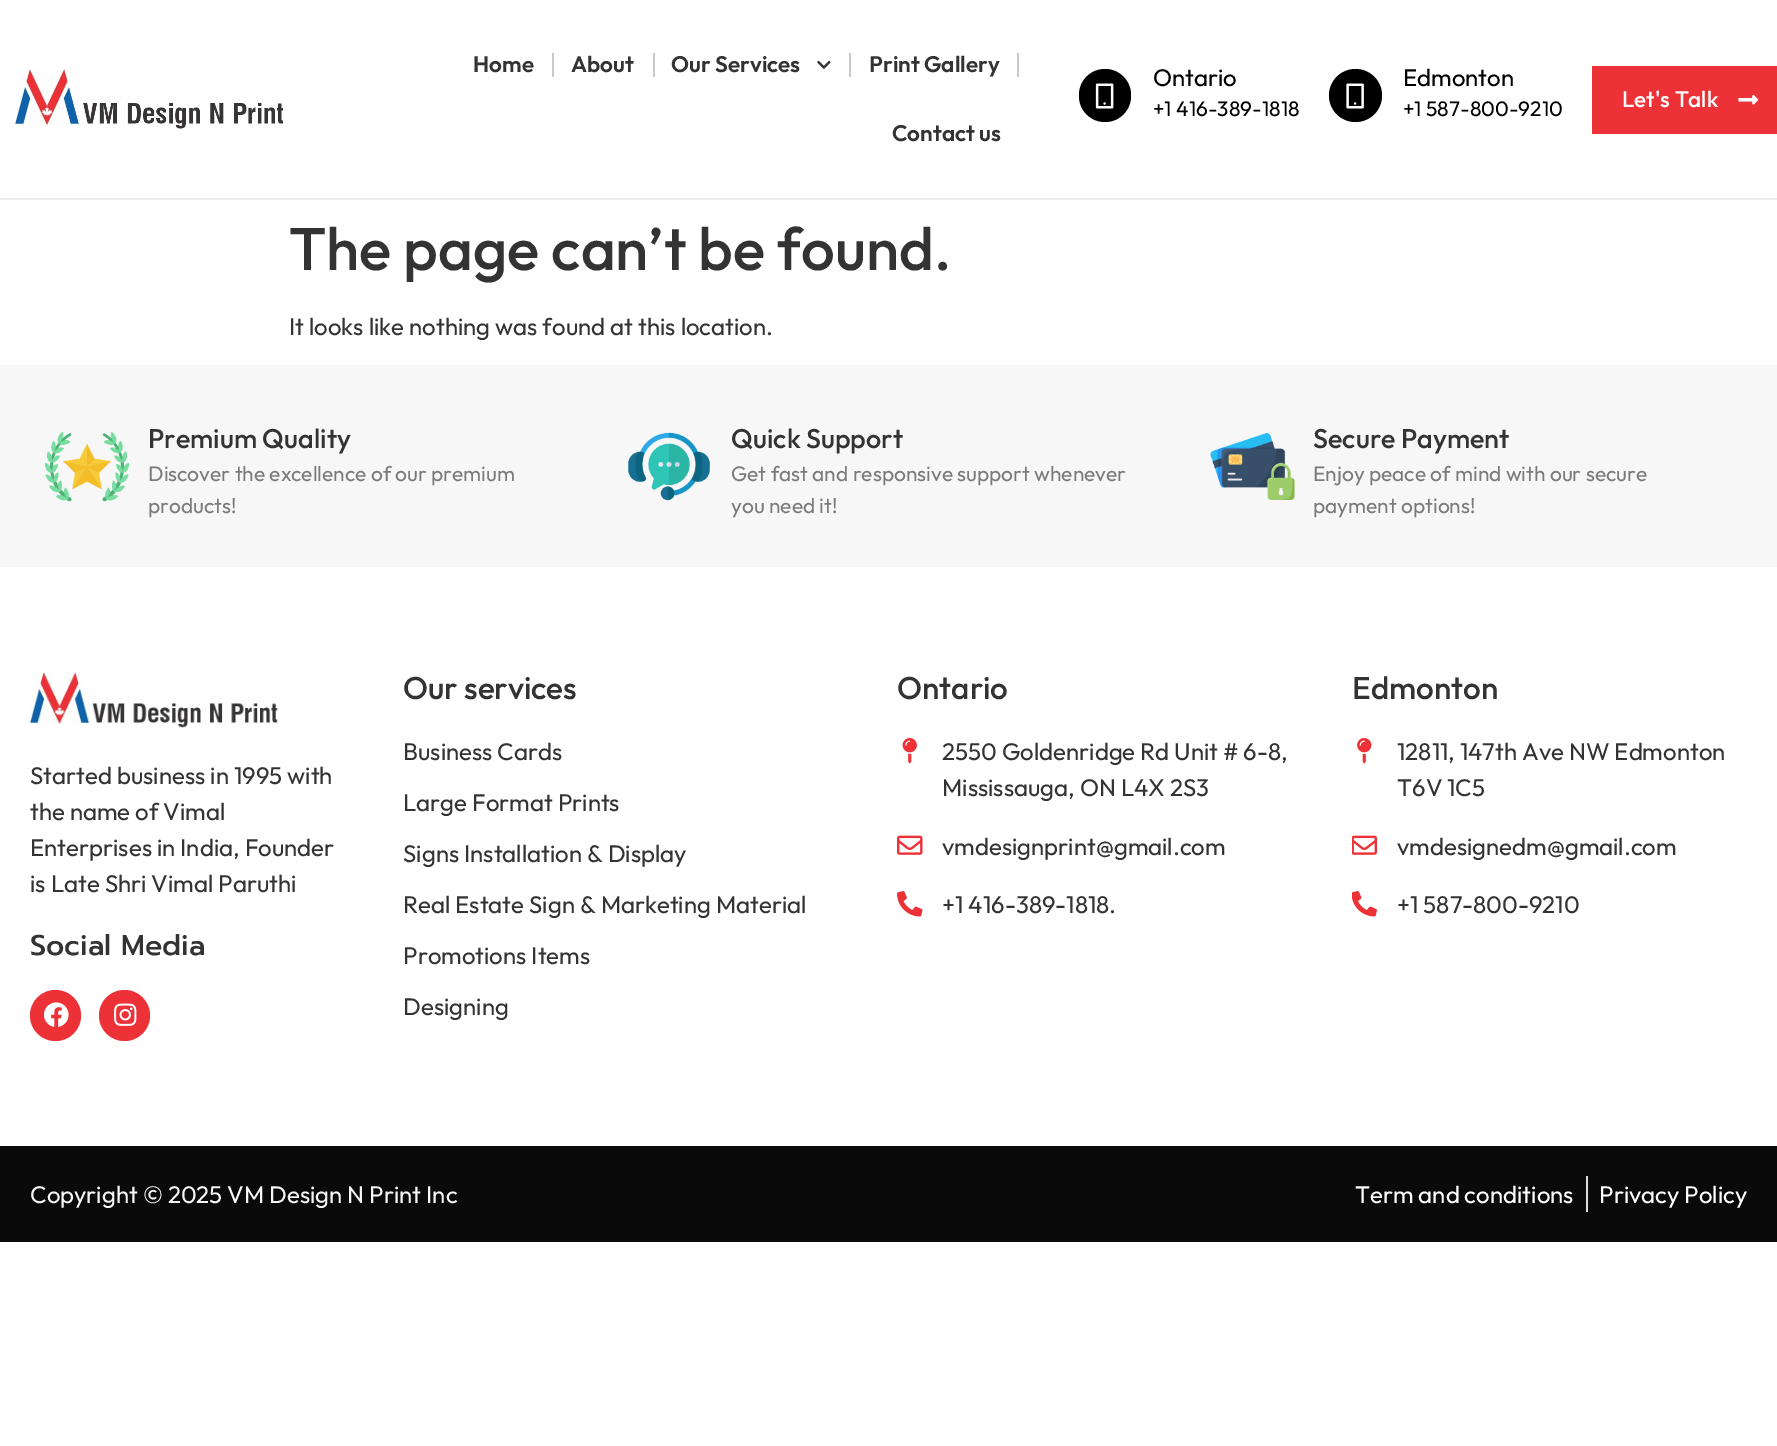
%!PS-Adobe-3.0
%%BoundingBox: 0 0 1777 1446
%%LanguageLevel: 3
%%Pages: 1
%%EndComments
%%BeginProlog
/setink { dup -16 bitshift 255 div exch dup -8 bitshift 255 and 255 div exch 255 and 255 div setrgbcolor } def
/usefont { [ exch dup neg 0 0 3 -1 roll 0 0 ] selectfont } def
/disc { newpath 0 360 arc closepath } def
/rrect { 5 dict begin { /r /h /w /y /x } { exch def } forall
  x r add y moveto x w add y 2 copy h add r arct x w add y h add x 1 index r arct
  x y h add x y r arct x y 2 copy exch w add exch r arct closepath end } def
/drawimage { 5 dict begin { /h /w /y /x /name } { exch def } forall
  gsave x y translate w h scale
  w h 8 [w 0 0 h 0 0] name (r) file false 3 colorimage grestore end } def
%%EndProlog
%%BeginSetup
<< /PageSize [1777 1446] >> setpagedevice
%%EndSetup
%%Page: 1 1
0 1446 translate 1 -1 scale
4 setmiterlimit
16#FFFFFF setink
0 0 1777 1446 rectfill
16#ECECEC setink
0 198 1777 2 rectfill
(img1.raw) 15 69 268 60 drawimage
/Outfit-SemiBold 22.5 usefont
16#333333 setink
473 72 moveto (Home) show
16#C9C9C9 setink
552 53 2 24 rectfill
16#333333 setink
571 72 moveto (About) show
16#C9C9C9 setink
653 53 2 24 rectfill
16#333333 setink
671 72 moveto (Our Services) show
(img2.raw) 817 60 14 9 drawimage
16#C9C9C9 setink
849 53 2 24 rectfill
16#333333 setink
869 72 moveto (Print Gallery) show
16#C9C9C9 setink
1017 53 2 24 rectfill
16#333333 setink
892 141 moveto (Contact us) show
16#000000 setink
1079 69 52 53 26 rrect fill
(img3.raw) 1095 83 19 26 drawimage
/Outfit-Regular 24 usefont
1153 86 moveto (Ontario) show
/Outfit-Regular 21 usefont
1153 116 moveto (+1 416-389-1818) show
1355.5 95.5 26.5 disc fill
(img4.raw) 1346 83 18 26 drawimage
/Outfit-Regular 24 usefont
1403 86 moveto (Edmonton) show
/Outfit-Regular 21 usefont
1403 116 moveto (+1 587-800-9210) show
16#EC3237 setink
1592 66 185 68 rectfill
/Outfit-Medium 22.5 usefont
16#FFFFFF setink
1622 107 moveto (Let's Talk) show
(img5.raw) 1738 94 21 11 drawimage
/Outfit-Medium 60 usefont
16#333333 setink
289 270 moveto (The page can’t be found.) show
/Outfit-Regular 24 usefont
289 335 moveto (It looks like nothing was found at this location.) show
16#F7F7F7 setink
0 365 1777 202 rectfill
(img6.raw) 45 431 84 71 drawimage
/Outfit-Medium 27 usefont
16#333333 setink
148 448 moveto (Premium Quality) show
/Outfit-Regular 21 usefont
16#7A7A7A setink
148 481 moveto (Discover the excellence of our premium) show
148 513 moveto (products!) show
(img7.raw) 628 432 82 69 drawimage
/Outfit-Medium 27 usefont
16#333333 setink
731 448 moveto (Quick Support) show
/Outfit-Regular 21 usefont
16#7A7A7A setink
731 481 moveto (Get fast and responsive support whenever) show
731 513 moveto (you need it!) show
(img8.raw) 1210 433 85 67 drawimage
/Outfit-Medium 27 usefont
16#333333 setink
1313 448 moveto (Secure Payment) show
/Outfit-Regular 21 usefont
16#7A7A7A setink
1313 481 moveto (Enjoy peace of mind with our secure) show
1313 513 moveto (payment options!) show
(img9.raw) 30 672 248 56 drawimage
/Outfit-Regular 24 usefont
16#333333 setink
[
    [(Started business in 1995 with) 30 784]
    [(the name of Vimal) 30 820]
    [(Enterprises in India, Founder) 30 856]
    [(is Late Shri Vimal Paruthi) 30 892]
] { aload pop moveto show } forall
/Prompt-Medium 28.5 usefont
30 955 moveto (Social Media) show
16#EC3237 setink
55.5 1015.5 25.5 disc fill
(img10.raw) 44 1002 25 25 drawimage
124.5 1015.5 25.5 disc fill
(img11.raw) 114 1003 23 23 drawimage
/Outfit-Medium 31.5 usefont
16#333333 setink
403 699 moveto (Our services) show
/Outfit-Regular 24 usefont
[
    [(Business Cards) 403 760]
    [(Large Format Prints) 403 811]
    [(Signs Installation & Display) 403 862]
    [(Real Estate Sign & Marketing Material) 403 913]
    [(Promotions Items) 403 964]
    [(Designing) 403 1015]
] { aload pop moveto show } forall
/Outfit-Medium 31.5 usefont
897 699 moveto (Ontario) show
(img12.raw) 902 738 15 26 drawimage
/Outfit-Regular 24 usefont
942 760 moveto (2550 Goldenridge Rd Unit # 6-8,) show
942 796 moveto (Mississauga, ON L4X 2S3) show
(img13.raw) 897 835 26 20 drawimage
942 855 moveto (vmdesignprint@gmail.com) show
(img14.raw) 897 891 26 26 drawimage
942 913 moveto (+1 416-389-1818.) show
/Outfit-Medium 31.5 usefont
1352 699 moveto (Edmonton) show
(img15.raw) 1357 738 15 26 drawimage
/Outfit-Regular 24 usefont
1397 760 moveto (12811, 147th Ave NW Edmonton) show
1397 796 moveto (T6V 1C5) show
(img16.raw) 1352 835 25 20 drawimage
1397 855 moveto (vmdesignedm@gmail.com) show
(img17.raw) 1352 891 25 26 drawimage
1397 913 moveto (+1 587-800-9210) show
16#0A0A0A setink
0 1146 1777 96 rectfill
16#F6F6F6 setink
30 1203 moveto (Copyright © 2025 VM Design N Print Inc) show
16#FFFFFF setink
1355 1203 moveto (Term and conditions) show
16#DDDDDD setink
1586 1176 2 36 rectfill
16#FFFFFF setink
1599 1203 moveto (Privacy Policy) show
showpage
%%EOF
